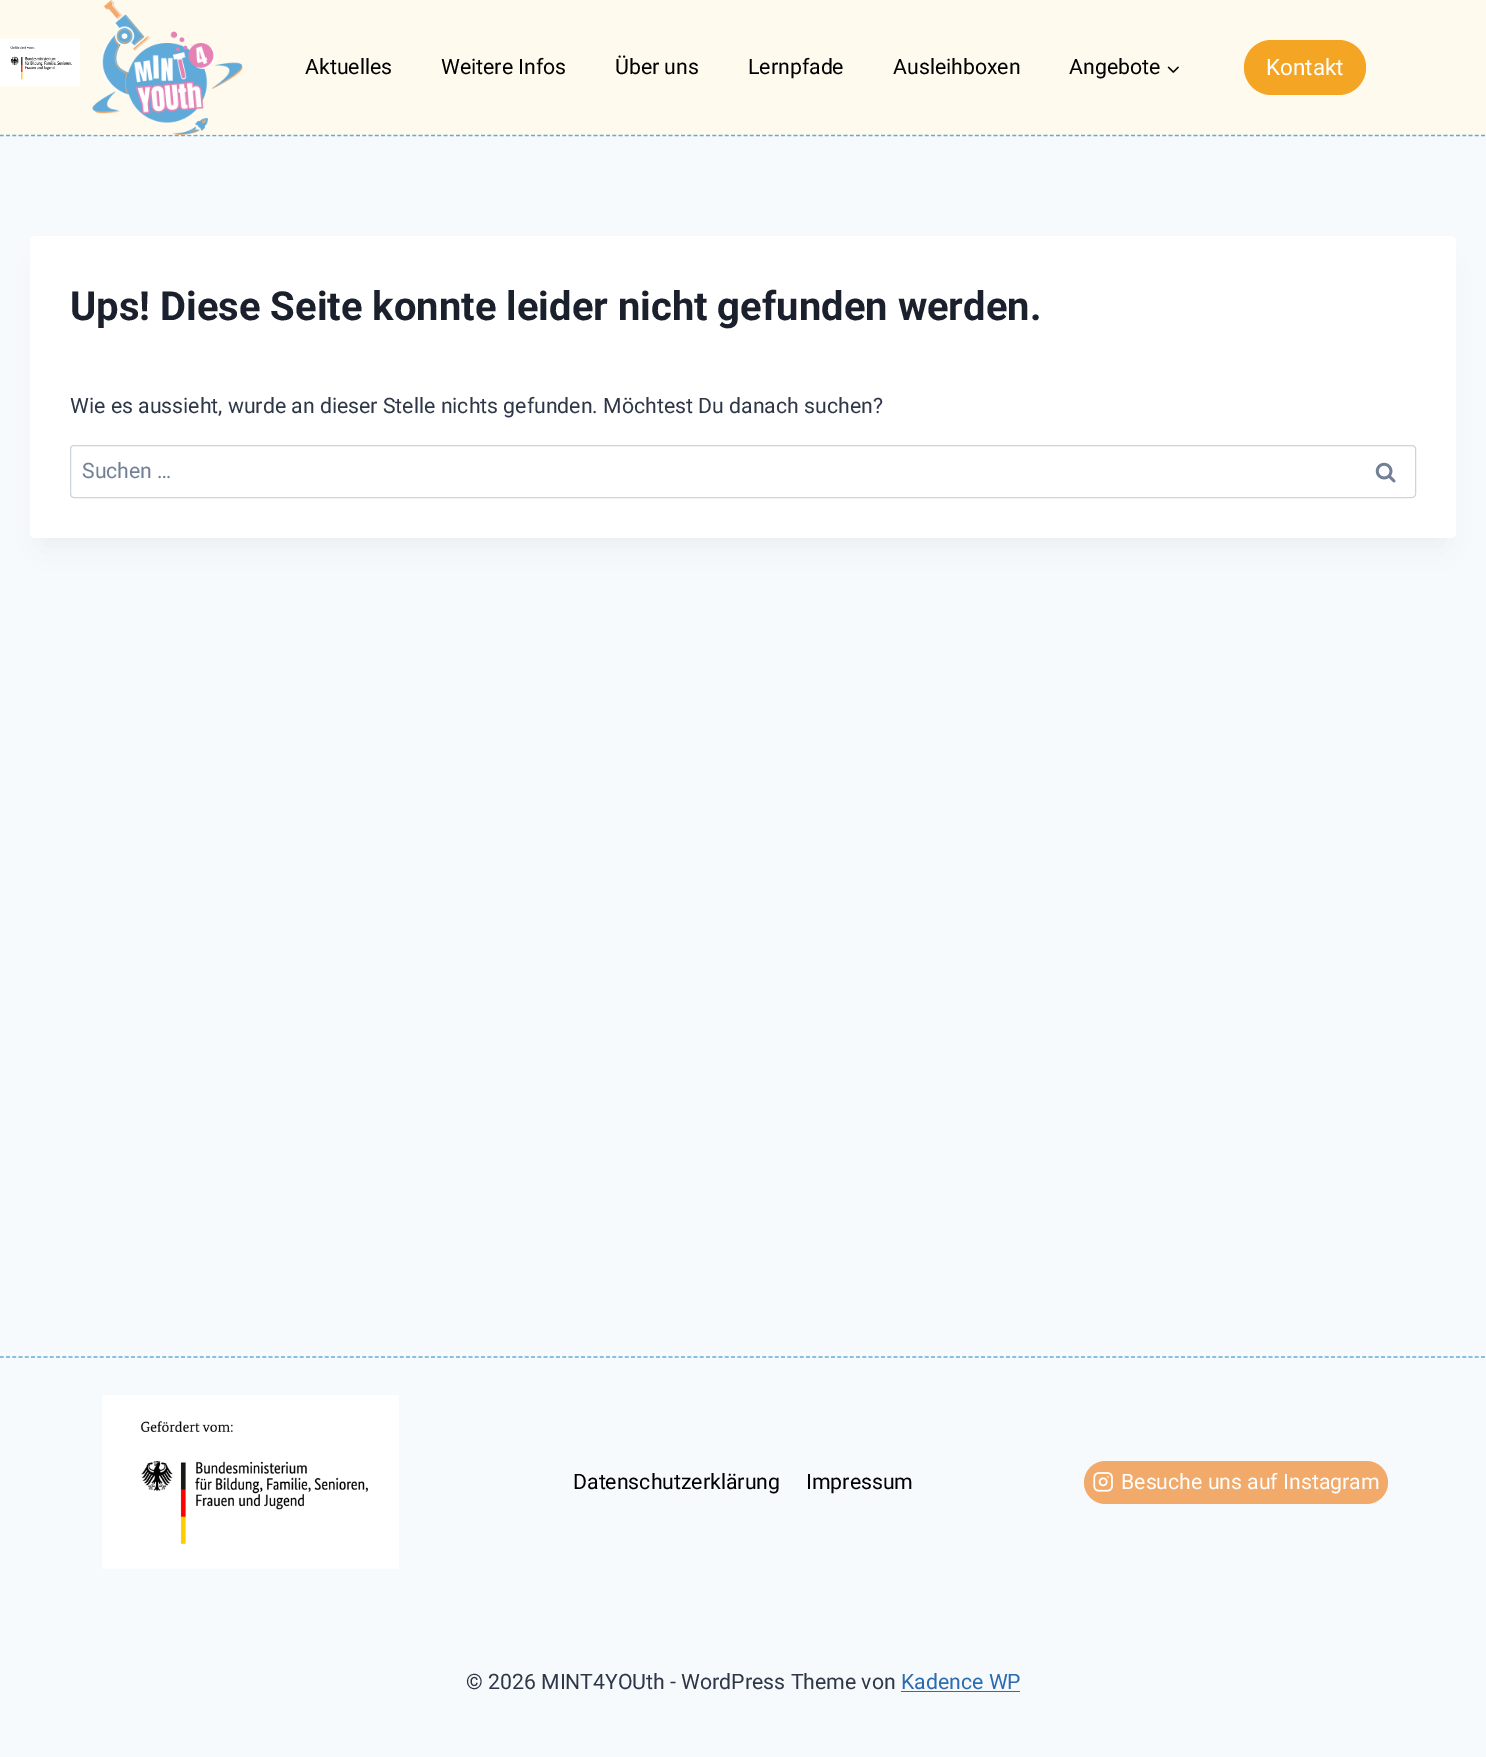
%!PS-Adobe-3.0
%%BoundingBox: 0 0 1486 1757
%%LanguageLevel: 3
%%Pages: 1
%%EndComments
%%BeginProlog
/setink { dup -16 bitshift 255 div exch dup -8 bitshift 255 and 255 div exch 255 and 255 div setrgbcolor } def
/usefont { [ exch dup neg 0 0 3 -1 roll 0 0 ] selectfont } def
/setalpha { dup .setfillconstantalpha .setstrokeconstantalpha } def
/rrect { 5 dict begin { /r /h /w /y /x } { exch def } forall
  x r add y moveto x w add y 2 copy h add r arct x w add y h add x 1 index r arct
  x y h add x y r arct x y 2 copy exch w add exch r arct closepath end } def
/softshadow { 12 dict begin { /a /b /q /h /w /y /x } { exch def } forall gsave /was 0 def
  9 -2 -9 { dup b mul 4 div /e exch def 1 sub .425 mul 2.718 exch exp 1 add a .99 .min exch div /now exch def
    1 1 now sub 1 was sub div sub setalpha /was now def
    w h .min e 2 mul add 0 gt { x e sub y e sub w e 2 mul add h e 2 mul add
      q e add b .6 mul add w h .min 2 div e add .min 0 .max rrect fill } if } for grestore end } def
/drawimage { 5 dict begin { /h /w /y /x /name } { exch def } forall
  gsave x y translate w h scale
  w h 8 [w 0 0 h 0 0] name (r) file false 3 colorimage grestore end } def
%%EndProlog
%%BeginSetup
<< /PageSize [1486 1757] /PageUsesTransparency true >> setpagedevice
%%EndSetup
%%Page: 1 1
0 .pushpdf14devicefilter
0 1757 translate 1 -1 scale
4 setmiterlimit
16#F7FAFC setink
0 0 1486 1757 rectfill
16#FFFAEE setink
0 0 1486 136 rectfill
16#63AADB setink
1.2 setlinewidth
[3.75 2.5] 0 setdash
0 135.5 moveto 1486 135.5 lineto stroke
(img1.raw) 0 38 80 49 drawimage
(img2.raw) 92 0 151 135 drawimage
/Roboto-Regular 21.25 usefont
16#000000 setink
[
    [(Aktuelles) 305 74]
    [(Weitere Infos) 441 74]
    [(Über uns) 615 74]
    [(Lernpfade) 748 74]
    [(Ausleihboxen) 893 74]
    [(Angebote) 1069 74]
] { aload pop moveto show } forall
(img3.raw) 1167 66 12 7 drawimage
16#F5A524 setink
1244 40 122 55 27.5 rrect fill
/Roboto-Regular 22.5 usefont
16#FFFFFF setink
1266 75 moveto (Kontakt) show
16#000000 setink
43 268 1401 276 0 15.5 0.05 softshadow
16#FFFFFF setink
30 236 1426 302 5 rrect fill
/Roboto-Bold 40 usefont
16#1A202C setink
70 320 moveto (Ups! Diese Seite konnte leider nicht gefunden werden.) show
/Roboto-Regular 21.25 usefont
16#2D3748 setink
70 413 moveto (Wie es aussieht, wurde an dieser Stelle nichts gefunden. Möchtest Du danach suchen?) show
16#CBD5E0 setink
1 setlinewidth
[] 0 setdash
70.5 445.5 1345 52 3.5 rrect stroke
16#718096 setink
82 478 moveto (Suchen …) show
(img4.raw) 1375 462 21 21 drawimage
16#63AADB setink
1.2 setlinewidth
[3.75 2.5] 0 setdash
0 1357 moveto 1486 1357 lineto stroke
(img5.raw) 102 1395 297 174 drawimage
16#000000 setink
573 1489 moveto (Datenschutzerklärung) show
806 1489 moveto (Impressum) show
16#F2AA6B setink
1084 1461 304 43 21.5 rrect fill
(img6.raw) 1093 1472 20 20 drawimage
16#FFFFFF setink
1121 1489 moveto (Besuche uns auf Instagram) show
16#2D3748 setink
466 1689 moveto (© 2026 MINT4YOUth - WordPress Theme von) show
16#2B6CB0 setink
901 1689 moveto (Kadence WP) show
901 1691 119 1 rectfill
.poppdf14devicefilter showpage
%%EOF
